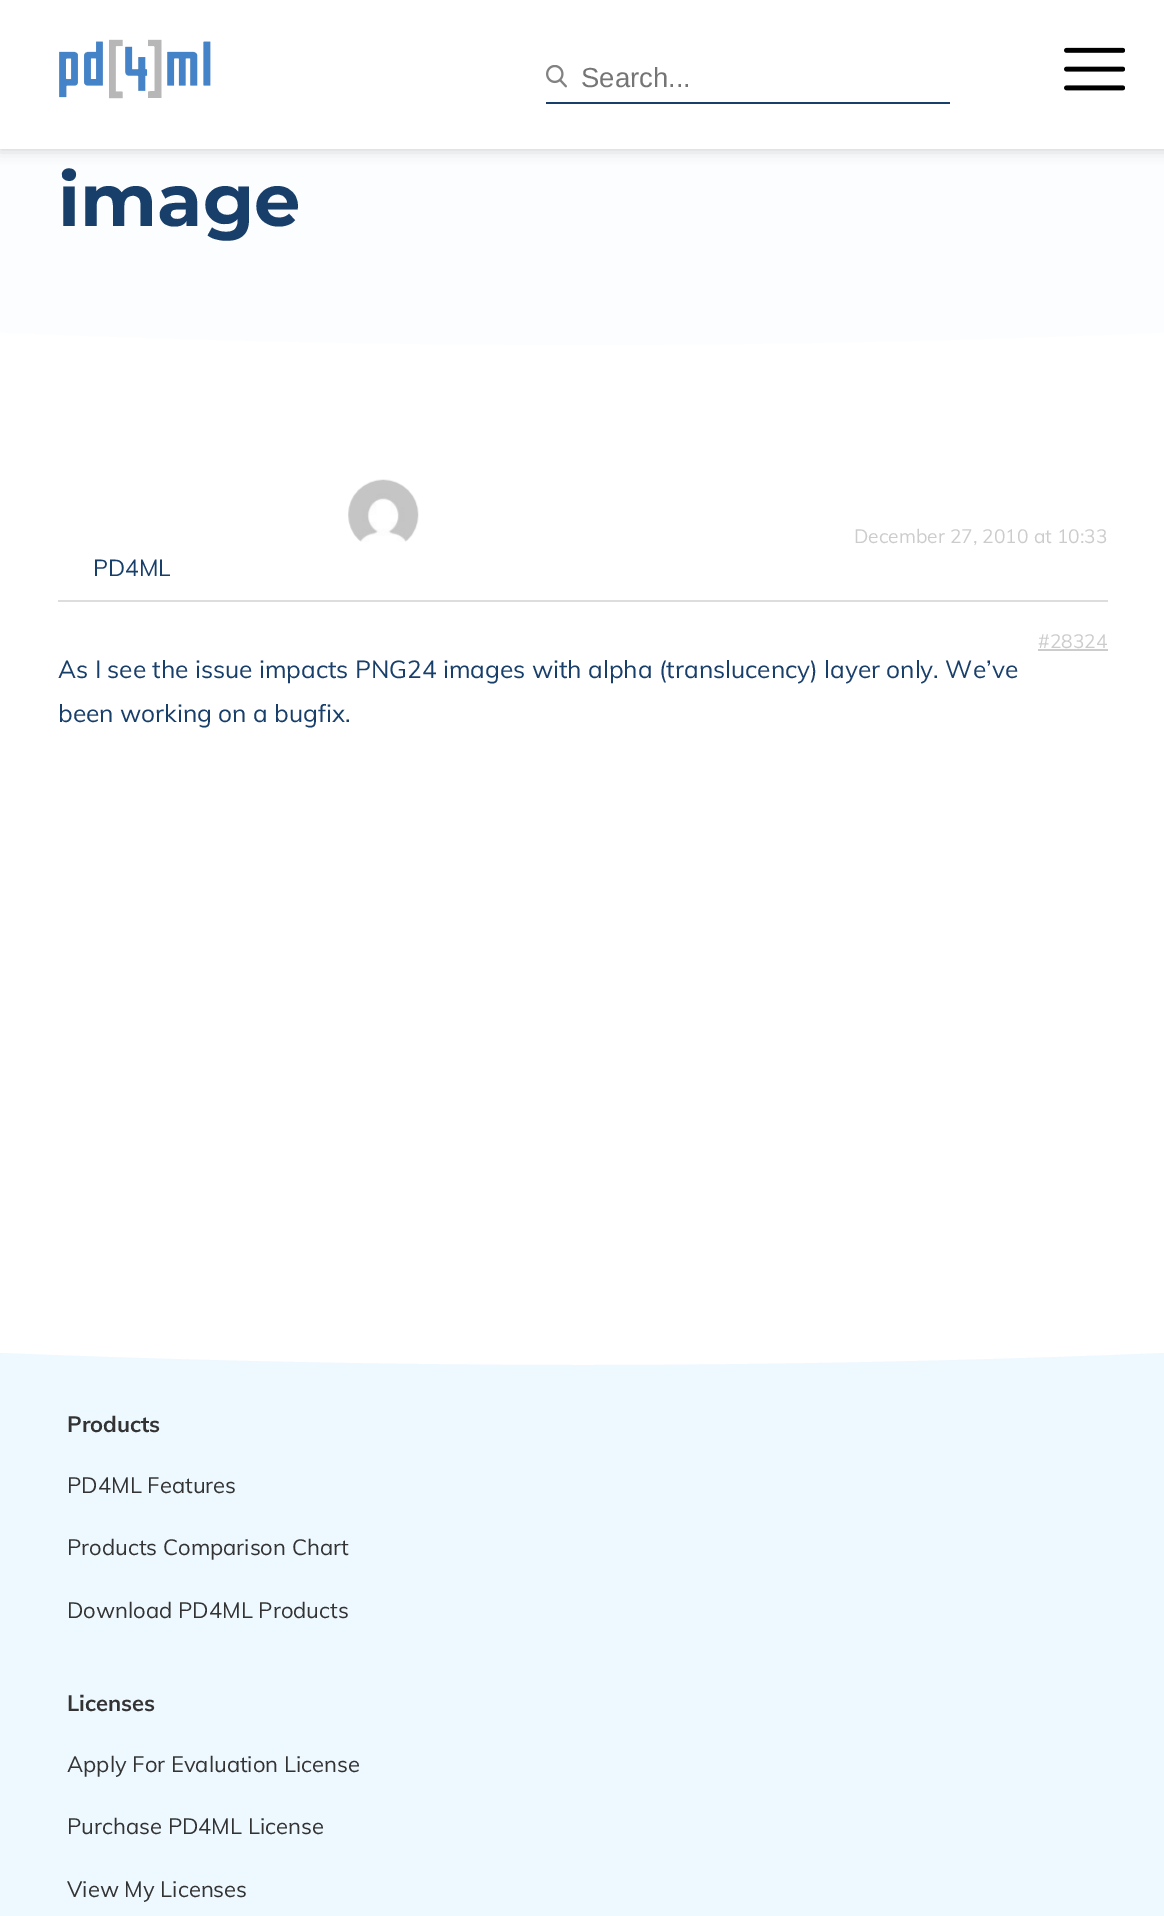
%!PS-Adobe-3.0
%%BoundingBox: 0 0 1164 1916
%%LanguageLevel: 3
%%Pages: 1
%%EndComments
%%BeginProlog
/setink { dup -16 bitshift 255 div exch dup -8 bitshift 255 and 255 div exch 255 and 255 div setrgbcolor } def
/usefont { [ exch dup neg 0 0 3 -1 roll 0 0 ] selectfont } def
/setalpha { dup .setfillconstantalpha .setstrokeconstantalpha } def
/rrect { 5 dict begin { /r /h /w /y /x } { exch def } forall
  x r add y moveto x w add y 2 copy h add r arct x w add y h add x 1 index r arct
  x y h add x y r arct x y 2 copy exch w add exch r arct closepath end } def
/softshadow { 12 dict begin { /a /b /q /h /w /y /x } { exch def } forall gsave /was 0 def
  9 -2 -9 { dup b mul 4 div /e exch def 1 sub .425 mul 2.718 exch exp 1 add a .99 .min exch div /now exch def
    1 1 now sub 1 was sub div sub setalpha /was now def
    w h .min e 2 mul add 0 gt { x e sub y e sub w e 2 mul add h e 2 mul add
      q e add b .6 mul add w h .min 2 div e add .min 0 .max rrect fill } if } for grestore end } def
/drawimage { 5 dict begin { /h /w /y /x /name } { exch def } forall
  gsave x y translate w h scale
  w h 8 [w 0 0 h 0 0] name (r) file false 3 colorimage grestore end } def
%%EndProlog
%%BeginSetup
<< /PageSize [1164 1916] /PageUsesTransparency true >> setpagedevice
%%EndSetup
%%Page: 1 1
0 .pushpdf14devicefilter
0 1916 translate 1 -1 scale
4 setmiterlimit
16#FFFFFF setink
0 0 1164 1916 rectfill
16#FBFDFF setink
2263 244 moveto 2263 -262 lineto -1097 -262 lineto -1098 244 lineto -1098 244 -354 345 582 345 curveto 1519 345 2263 244 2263 244 curveto closepath fill
16#000000 setink
0 0 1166 149 0 7 0.2 softshadow
16#FFFFFF setink
0 0 1164 149 rectfill
(img1.raw) 59 39 152 60 drawimage
16#183E6A setink
546 102 404 2 rectfill
(img2.raw) 546 65 21 23 drawimage
/LiberationSans-Regular 27.5 usefont
16#757575 setink
581 87 moveto (Search...) show
(img3.raw) 1064 47 61 44 drawimage
/Montserrat-Bold 73.5 usefont
16#183E6A setink
58 226 moveto (image) show
16#DDDDDD setink
58 600 1050 2 rectfill
/Muli-Regular 19.25 usefont
16#CCCCCC setink
854 543 moveto (December 27, 2010 at 10:33) show
(img4.raw) 348 479 71 63 drawimage
/Muli-Regular 23 usefont
16#183E6A setink
93 576 moveto (PD4ML) show
/Muli-Regular 19.25 usefont
16#CCCCCC setink
1038 648 moveto (#28324) show
1038 649 70 2 rectfill
/Muli-Regular 24.5 usefont
16#183E6A setink
58 678 moveto (As I see the issue impacts PNG24 images with alpha \(translucency\) layer only. We’ve) show
58 722 moveto (been working on a bugfix.) show
16#EDF8FF setink
0 1825 1164 91 rectfill
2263 1825 moveto -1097 1825 lineto -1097 1264 lineto -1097 1264 -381 1365 583 1365 curveto 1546 1365 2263 1264 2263 1264 curveto closepath fill
/Muli-Bold 22 usefont
16#333333 setink
67 1432 moveto (Products) show
/Muli-Regular 22 usefont
[
    [(PD4ML Features) 67 1493]
    [(Products Comparison Chart) 67 1555]
    [(Download PD4ML Products) 67 1618]
] { aload pop moveto show } forall
/Muli-Bold 22 usefont
67 1711 moveto (Licenses) show
/Muli-Regular 22 usefont
[
    [(Apply For Evaluation License) 67 1772]
    [(Purchase PD4ML License) 67 1834]
    [(View My Licenses) 67 1897]
] { aload pop moveto show } forall
.poppdf14devicefilter showpage
%%EOF
